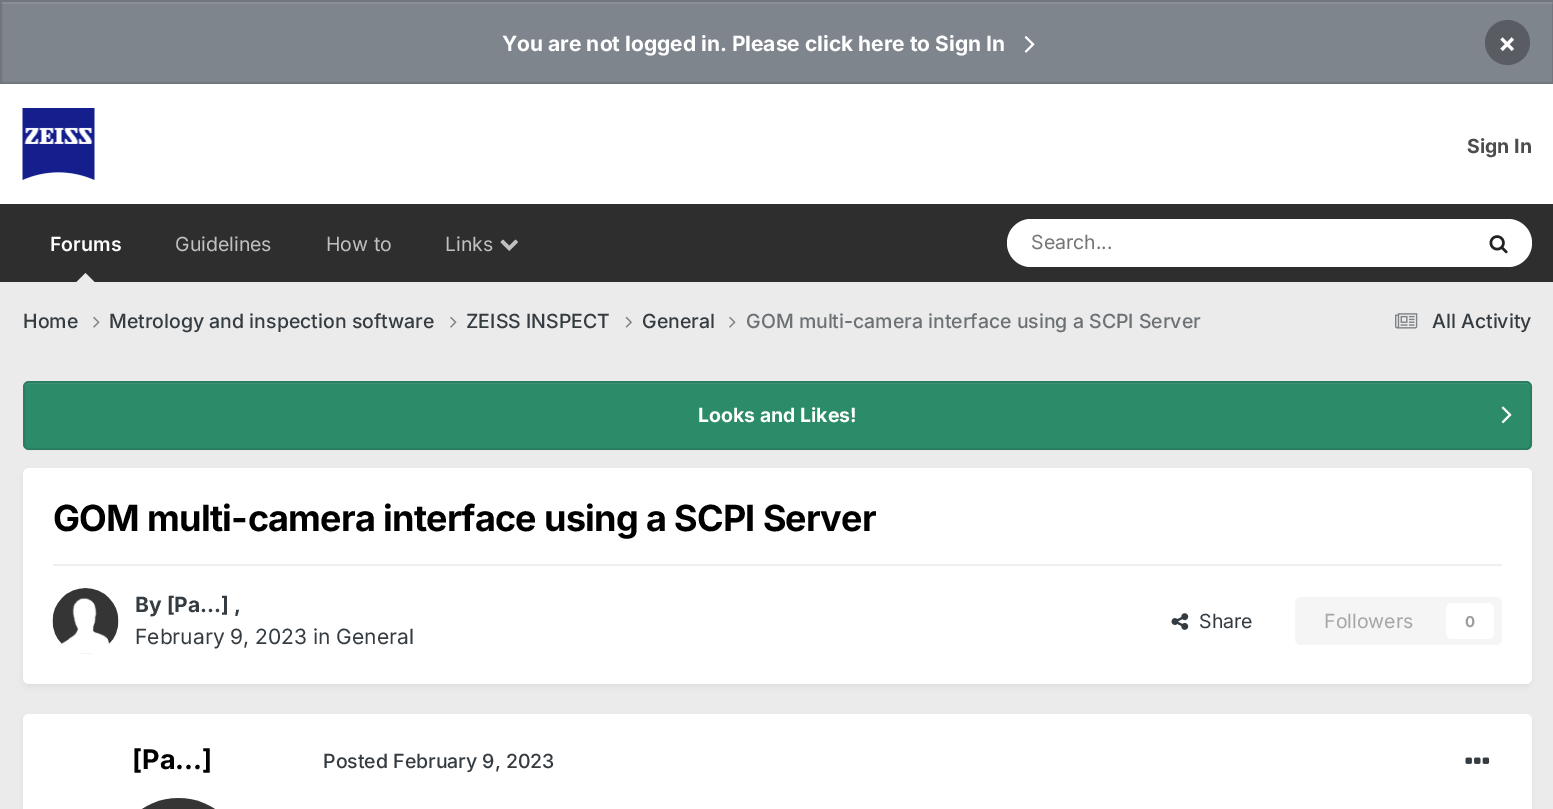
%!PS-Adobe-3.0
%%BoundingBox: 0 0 1553 809
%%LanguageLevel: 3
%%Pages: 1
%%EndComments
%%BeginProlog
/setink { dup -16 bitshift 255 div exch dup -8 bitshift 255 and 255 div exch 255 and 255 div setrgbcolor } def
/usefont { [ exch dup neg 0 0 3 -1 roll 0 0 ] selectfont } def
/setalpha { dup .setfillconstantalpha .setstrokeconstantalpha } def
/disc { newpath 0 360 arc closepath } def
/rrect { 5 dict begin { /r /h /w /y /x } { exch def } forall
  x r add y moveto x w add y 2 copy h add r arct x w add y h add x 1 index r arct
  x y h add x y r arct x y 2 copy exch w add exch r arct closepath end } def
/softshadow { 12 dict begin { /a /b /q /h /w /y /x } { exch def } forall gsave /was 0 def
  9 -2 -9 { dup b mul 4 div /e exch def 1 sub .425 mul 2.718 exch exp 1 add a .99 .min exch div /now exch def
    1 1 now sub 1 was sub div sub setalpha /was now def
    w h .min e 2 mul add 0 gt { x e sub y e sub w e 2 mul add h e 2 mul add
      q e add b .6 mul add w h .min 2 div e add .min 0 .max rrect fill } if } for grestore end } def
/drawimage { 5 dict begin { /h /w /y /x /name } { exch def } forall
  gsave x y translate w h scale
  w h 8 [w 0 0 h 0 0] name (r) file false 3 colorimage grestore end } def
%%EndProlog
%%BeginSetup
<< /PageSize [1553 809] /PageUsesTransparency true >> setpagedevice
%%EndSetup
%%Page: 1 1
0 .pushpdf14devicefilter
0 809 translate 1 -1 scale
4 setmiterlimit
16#EBEBEB setink
0 0 1553 809 rectfill
16#7F858D setink
0 0 1553 84 rectfill
16#8C9198 setink
2 2 1551 2 rectfill
0.1 setalpha
16#000000 setink
2 setlinewidth
1 1 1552 82 rectstroke
/Inter-Bold 21 usefont
1 setalpha
16#FFFFFF setink
502 51 moveto (You are not logged in. Please click here to Sign In) show
(img1.raw) 1024 36 11 17 drawimage
16#595D63 setink
1507.5 42.5 22.5 disc fill
/Inter-Bold 27 usefont
16#FFFFFF setink
1498 52 moveto (×) show
0 84 1553 120 rectfill
(img2.raw) 22 108 73 72 drawimage
/Inter-Bold 19.5 usefont
16#4D4D4D setink
1467 153 moveto (Sign In) show
16#2E2E2E setink
0 204 1553 78 rectfill
/Inter-SemiBold 19.5 usefont
16#FFFFFF setink
50 251 moveto (Forums) show
16#EBEBEB setink
94.5 282 moveto 76.5 282 lineto 85.5 273 lineto closepath fill
/Inter-Regular 19.5 usefont
16#C0C0C0 setink
[
    [(Guidelines) 175 251]
    [(How to) 326 251]
    [(Links) 445 251]
] { aload pop moveto show } forall
(img3.raw) 500 239 18 12 drawimage
16#FFFFFF setink
1007 219 525 48 24 rrect fill
16#757575 setink
1031 249 moveto (Search...) show
(img4.raw) 1489 235 19 19 drawimage
/Inter-Medium 19.5 usefont
16#353C41 setink
23 328 moveto (Home) show
(img5.raw) 93 316 7 12 drawimage
109 328 moveto (Metrology and inspection software) show
(img5.raw) 450 316 7 12 drawimage
466 328 moveto (ZEISS INSPECT) show
(img6.raw) 625 316 7 12 drawimage
642 328 moveto (General) show
(img5.raw) 729 316 7 12 drawimage
16#6C7174 setink
746 328 moveto (GOM multi-camera interface using a SCPI Server) show
(img7.raw) 1395 313 23 16 drawimage
16#353C41 setink
1432 328 moveto (All Activity) show
16#2C8C69 setink
23 381 1509 69 6 rrect fill
16#419878 setink
28 384 moveto 1526 384 lineto 1528 384 1530 386 1530 388 curveto 1530 385 1528 383 1525 383 curveto 29 383 lineto 26 383 24 385 24 388 curveto 24 386 26 384 28 384 curveto closepath fill
0.1 setalpha
16#000000 setink
24 382 1507 67 5 rrect stroke
/Inter-Bold 19.5 usefont
1 setalpha
16#FFFFFF setink
698 422 moveto (Looks and Likes!) show
(img8.raw) 1501 406 11 18 drawimage
16#4D4D4D setink
24 473 1506 213 5 3 0.1 softshadow
16#FFFFFF setink
23 468 1509 216 6 rrect fill
/Inter-Bold 36 usefont
16#000000 setink
53 531 moveto -0.7 0 (GOM multi-camera interface using a SCPI Server) ashow
16#EFEFF0 setink
53 564 1449 2 rectfill
(img9.raw) 52 588 67 66 drawimage
/Inter-Bold 21 usefont
16#353C41 setink
135 612 moveto (By [Pa...] ,) show
/Inter-Regular 21 usefont
135 644 moveto (February 9, 2023 in General) show
(img10.raw) 1171 613 18 17 drawimage
/Inter-Regular 19.5 usefont
1199 628 moveto (Share) show
16#F5F5F5 setink
1295 597 207 48 6 rrect fill
16#A6A6A6 setink
1324 628 moveto (Followers) show
16#FFFFFF setink
1446 603 48 36 6 rrect fill
/Inter-Bold 15 usefont
16#9A9EA0 setink
1465 627 moveto (0) show
16#4D4D4D setink
24 719 1506 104 5 3 0.1 softshadow
16#FFFFFF setink
23 714 1509 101 6 rrect fill
/Inter-Bold 27 usefont
16#000000 setink
132 769 moveto ([Pa...]) show
(img11.raw) 142 798 73 11 drawimage
/Inter-Medium 19.5 usefont
16#353C41 setink
323 768 moveto (Posted February 9, 2023) show
(img12.raw) 1465 757 25 7 drawimage
.poppdf14devicefilter showpage
%%EOF
